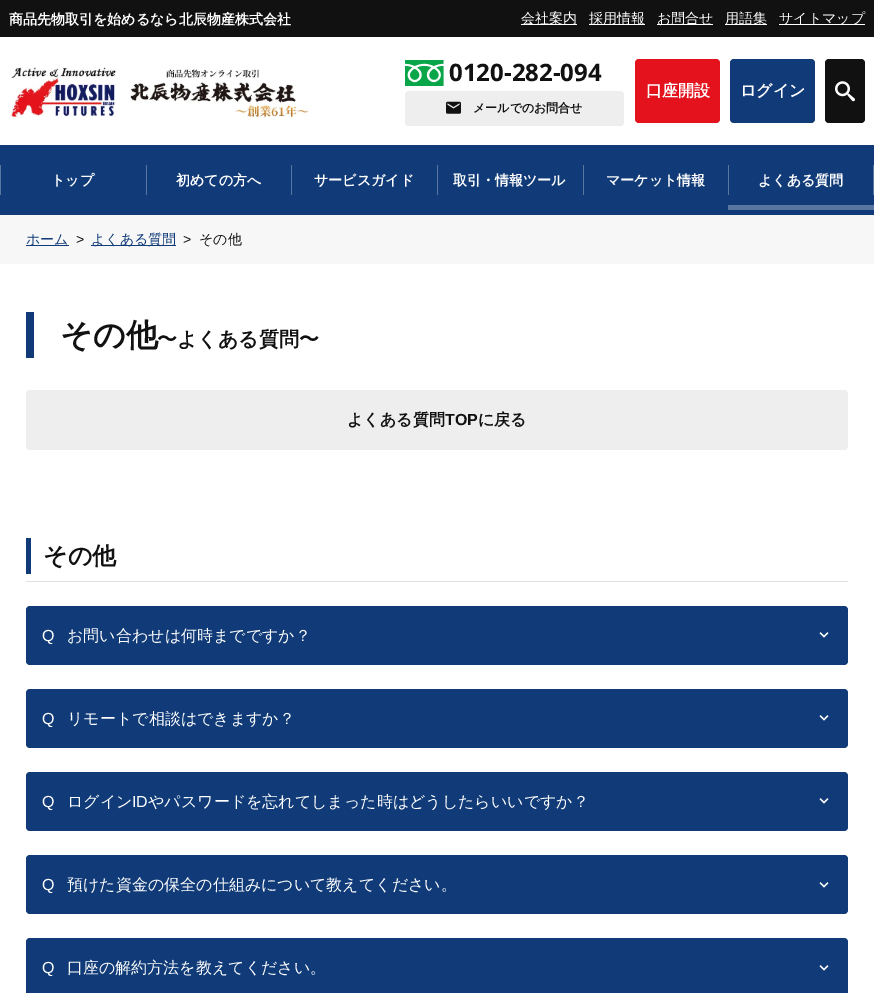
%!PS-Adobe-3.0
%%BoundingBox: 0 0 874 993
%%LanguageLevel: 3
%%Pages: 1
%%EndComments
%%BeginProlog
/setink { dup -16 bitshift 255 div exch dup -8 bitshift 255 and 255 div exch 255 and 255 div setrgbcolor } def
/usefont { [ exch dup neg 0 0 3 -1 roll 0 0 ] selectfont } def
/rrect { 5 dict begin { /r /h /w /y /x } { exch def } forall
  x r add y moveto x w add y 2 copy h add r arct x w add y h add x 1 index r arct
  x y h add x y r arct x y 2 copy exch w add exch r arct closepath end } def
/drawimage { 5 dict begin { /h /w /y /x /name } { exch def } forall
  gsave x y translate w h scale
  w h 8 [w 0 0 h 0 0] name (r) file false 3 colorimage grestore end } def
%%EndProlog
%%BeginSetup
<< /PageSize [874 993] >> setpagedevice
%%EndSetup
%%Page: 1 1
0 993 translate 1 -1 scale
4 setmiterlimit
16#FFFFFF setink
0 0 874 993 rectfill
16#111111 setink
0 0 874 37 rectfill
/WenQuanYiZenHei-Bold 14 usefont
16#FFFFFF setink
9 24 moveto (商品先物取引を始めるなら北辰物産株式会社) show
521 24 56 1 rectfill
/WenQuanYiZenHei-Medium 14 usefont
521 23 moveto (会社案内) show
589 24 56 1 rectfill
589 23 moveto (採用情報) show
657 24 56 1 rectfill
657 23 moveto (お問合せ) show
725 24 42 1 rectfill
725 23 moveto (用語集) show
779 24 86 1 rectfill
779 23 moveto (サイトマップ) show
(img1.raw) 9 67 300 52 drawimage
(img2.raw) 405 60 39 26 drawimage
/NotoSans-Bold 24 usefont
16#111111 setink
449 81 moveto (0120-282-094) show
16#EEEEEE setink
405 91 219 35 4 rrect fill
(img3.raw) 446 101 15 13 drawimage
/WenQuanYiZenHei-Bold 12 usefont
16#111111 setink
473 112 moveto (メールでのお問合せ) show
16#E3121C setink
635 59 85 64 4 rrect fill
/WenQuanYiZenHei-Bold 16 usefont
16#FFFFFF setink
646 96 moveto (口座開設) show
16#103B78 setink
730 59 85 64 4 rrect fill
16#FFFFFF setink
740 96 moveto (ログイン) show
16#111111 setink
825 59 40 64 4 rrect fill
(img4.raw) 835 81 20 21 drawimage
16#103B78 setink
0 145 874 70 rectfill
16#5876A0 setink
0 165 1 30 rectfill
/WenQuanYiZenHei-Bold 14 usefont
16#FFFFFF setink
51 185 moveto (トップ) show
16#5876A0 setink
146 165 1 30 rectfill
16#FFFFFF setink
176 185 moveto (初めての方へ) show
16#5876A0 setink
291 165 1 30 rectfill
16#FFFFFF setink
314 185 moveto (サービスガイド) show
16#5876A0 setink
437 165 1 30 rectfill
16#FFFFFF setink
453 185 moveto (取引・情報ツール) show
16#5876A0 setink
583 165 1 30 rectfill
16#FFFFFF setink
606 185 moveto (マーケット情報) show
16#5876A0 setink
728 165 1 30 rectfill
16#FFFFFF setink
758 185 moveto (よくある質問) show
[
    [873 165 1 30 16#5876A0]
    [728 205 146 5 16#5876A0]
    [0 215 874 49 16#F7F7F7]
    [26 245 43 1 16#103B78]
] { aload pop setink rectfill } forall
/WenQuanYiZenHei-Medium 14 usefont
26 244 moveto (ホーム) show
/LiberationSans-Regular 14 usefont
16#111111 setink
76 244 moveto (>) show
16#103B78 setink
91 245 85 1 rectfill
/WenQuanYiZenHei-Medium 14 usefont
91 244 moveto (よくある質問) show
/LiberationSans-Regular 14 usefont
16#111111 setink
183 244 moveto (>) show
/WenQuanYiZenHei-Medium 14 usefont
199 244 moveto (その他) show
16#103B78 setink
26 312 8 46 rectfill
/WenQuanYiZenHei-Bold 32 usefont
16#111111 setink
60 346 moveto (その他) show
/WenQuanYiZenHei-Bold 20 usefont
157 346 moveto (〜よくある質問〜) show
16#EEEEEE setink
26 390 822 60 4 rrect fill
/WenQuanYiZenHei-Bold 16 usefont
16#111111 setink
347 425 moveto (よくある質問) show
/LiberationSans-Bold 16 usefont
445 425 moveto (TOP) show
/WenQuanYiZenHei-Bold 16 usefont
478 425 moveto (に戻る) show
16#103B78 setink
26 538 5 36 rectfill
/WenQuanYiZenHei-Bold 24 usefont
16#111111 setink
43 564 moveto (その他) show
16#E0E0E0 setink
26 581 822 1 rectfill
16#103B78 setink
26 606 822 59 4 rrect fill
/LiberationSans-Regular 16 usefont
16#FFFFFF setink
42 641 moveto (Q) show
/WenQuanYiZenHei-Medium 16 usefont
67 641 moveto (お問い合わせは何時までですか？) show
(img5.raw) 819 632 10 6 drawimage
16#103B78 setink
26 689 822 59 4 rrect fill
/LiberationSans-Regular 16 usefont
16#FFFFFF setink
42 724 moveto (Q) show
/WenQuanYiZenHei-Medium 16 usefont
67 724 moveto (リモートで相談はできますか？) show
(img5.raw) 819 715 10 6 drawimage
16#103B78 setink
26 772 822 59 4 rrect fill
/LiberationSans-Regular 16 usefont
16#FFFFFF setink
42 807 moveto (Q) show
/WenQuanYiZenHei-Medium 16 usefont
67 807 moveto (ログイン) show
/LiberationSans-Regular 16 usefont
132 807 moveto (ID) show
/WenQuanYiZenHei-Medium 16 usefont
148 807 moveto (やパスワードを忘れてしまった時はどうしたらいいですか？) show
(img5.raw) 819 798 10 6 drawimage
16#103B78 setink
26 855 822 59 4 rrect fill
/LiberationSans-Regular 16 usefont
16#FFFFFF setink
42 890 moveto (Q) show
/WenQuanYiZenHei-Medium 16 usefont
67 890 moveto (預けた資金の保全の仕組みについて教えてください。) show
(img5.raw) 819 882 10 6 drawimage
16#103B78 setink
26 938 822 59 4 rrect fill
/LiberationSans-Regular 16 usefont
16#FFFFFF setink
42 973 moveto (Q) show
/WenQuanYiZenHei-Medium 16 usefont
67 973 moveto (口座の解約方法を教えてください。) show
(img5.raw) 819 965 10 6 drawimage
showpage
%%EOF
